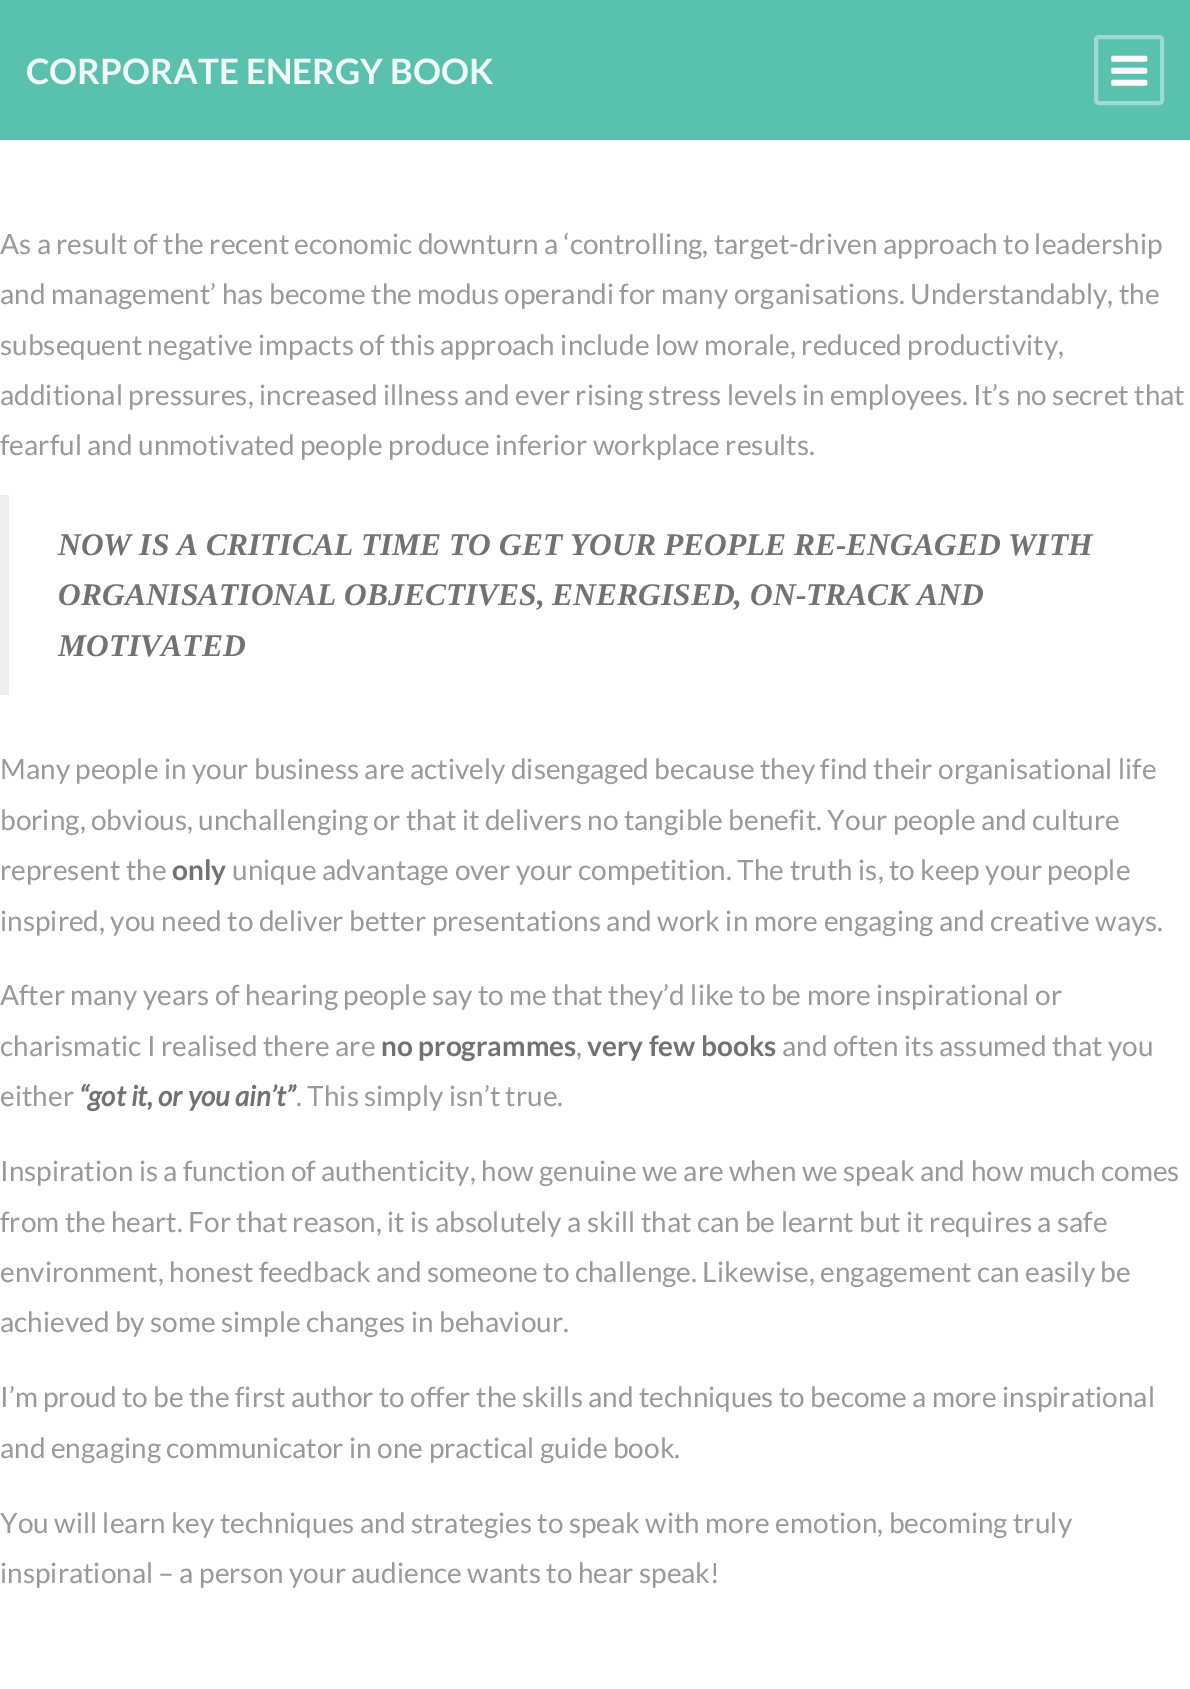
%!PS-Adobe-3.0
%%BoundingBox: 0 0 1190 1689
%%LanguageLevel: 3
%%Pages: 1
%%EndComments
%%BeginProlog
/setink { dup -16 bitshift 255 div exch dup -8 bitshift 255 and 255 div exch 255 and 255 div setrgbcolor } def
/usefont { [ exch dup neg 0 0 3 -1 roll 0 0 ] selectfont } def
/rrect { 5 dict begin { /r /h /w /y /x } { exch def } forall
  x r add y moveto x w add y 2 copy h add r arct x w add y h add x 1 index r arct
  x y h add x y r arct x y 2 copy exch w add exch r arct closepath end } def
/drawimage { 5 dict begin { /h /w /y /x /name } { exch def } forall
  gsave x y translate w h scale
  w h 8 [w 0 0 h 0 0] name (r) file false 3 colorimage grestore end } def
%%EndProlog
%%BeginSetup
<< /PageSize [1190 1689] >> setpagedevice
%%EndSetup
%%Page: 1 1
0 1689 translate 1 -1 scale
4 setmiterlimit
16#FFFFFF setink
0 0 1190 1689 rectfill
16#5BC1AF setink
0 0 1190 140 rectfill
/Lato-Bold 35 usefont
16#EFF9F7 setink
26 84 moveto (CORPORATE ENERGY BOOK) show
16#9DDACF setink
4 setlinewidth
1096 37 66 66 3 rrect stroke
(img1.raw) 1111 55 37 31 drawimage
/Lato-Regular 28 usefont
16#999999 setink
[
    [(As a result of the recent economic downturn a ‘controlling, target-driven approach to leadership) 0 254]
    [(and management’ has become the modus operandi for many organisations. Understandably, the) 0 304]
    [(subsequent negative impacts of this approach include low morale, reduced productivity,) 0 355]
    [(additional pressures, increased illness and ever rising stress levels in employees. It’s no secret that) 0 405]
    [(fearful and unmotivated people produce inferior workplace results.) 0 455]
] { aload pop moveto show } forall
16#EEEEEE setink
0 495 9 200 rectfill
/LiberationSerif-BoldItalic 31.5 usefont
16#727272 setink
[
    [(NOW IS A CRITICAL TIME TO GET YOUR PEOPLE RE-ENGAGED WITH) 58 555]
    [(ORGANISATIONAL OBJECTIVES, ENERGISED, ON-TRACK AND) 58 605]
    [(MOTIVATED) 58 656]
] { aload pop moveto show } forall
/Lato-Regular 28 usefont
16#999999 setink
[
    [(Many people in your business are actively disengaged because they find their organisational life) 0 779]
    [(boring, obvious, unchallenging or that it delivers no tangible benefit. Your people and culture) 0 830]
    [(represent the) 0 880]
] { aload pop moveto show } forall
/Lato-Bold 28 usefont
16#727272 setink
172 880 moveto (only) show
/Lato-Regular 28 usefont
16#999999 setink
[
    [(unique advantage over your competition. The truth is, to keep your people) 232 880]
    [(inspired, you need to deliver better presentations and work in more engaging and creative ways.) 0 931]
    [(After many years of hearing people say to me that they’d like to be more inspirational or) 0 1005]
    [(charismatic I realised there are) 0 1056]
] { aload pop moveto show } forall
/Lato-Bold 28 usefont
16#727272 setink
381 1056 moveto (no programmes) show
/Lato-Regular 28 usefont
16#999999 setink
576 1056 moveto (,) show
/Lato-Bold 28 usefont
16#727272 setink
587 1056 moveto (very few books) show
/Lato-Regular 28 usefont
16#999999 setink
782 1056 moveto (and often its assumed that you) show
0 1106 moveto (either) show
/Lato-BoldItalic 28 usefont
16#727272 setink
79 1106 moveto (“got it, or you ain’t”) show
/Lato-Regular 28 usefont
16#999999 setink
[
    [(. This simply isn’t true.) 296 1106]
    [(Inspiration is a function of authenticity, how genuine we are when we speak and how much comes) 0 1181]
    [(from the heart. For that reason, it is absolutely a skill that can be learnt but it requires a safe) 0 1232]
    [(environment, honest feedback and someone to challenge. Likewise, engagement can easily be) 0 1282]
    [(achieved by some simple changes in behaviour.) 0 1332]
    [(I’m proud to be the first author to offer the skills and techniques to become a more inspirational) 0 1407]
    [(and engaging communicator in one practical guide book.) 0 1458]
    [(You will learn key techniques and strategies to speak with more emotion, becoming truly) 0 1533]
    [(inspirational – a person your audience wants to hear speak!) 0 1583]
] { aload pop moveto show } forall
showpage
%%EOF
